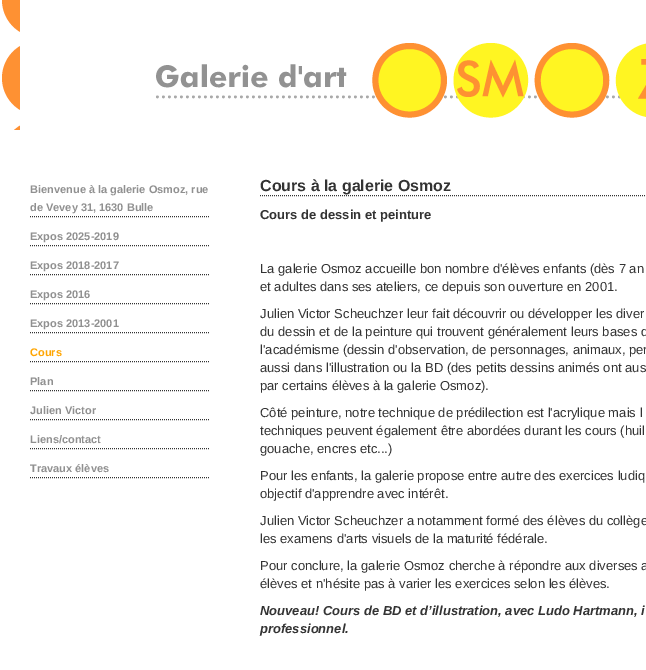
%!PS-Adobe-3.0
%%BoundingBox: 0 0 646 670
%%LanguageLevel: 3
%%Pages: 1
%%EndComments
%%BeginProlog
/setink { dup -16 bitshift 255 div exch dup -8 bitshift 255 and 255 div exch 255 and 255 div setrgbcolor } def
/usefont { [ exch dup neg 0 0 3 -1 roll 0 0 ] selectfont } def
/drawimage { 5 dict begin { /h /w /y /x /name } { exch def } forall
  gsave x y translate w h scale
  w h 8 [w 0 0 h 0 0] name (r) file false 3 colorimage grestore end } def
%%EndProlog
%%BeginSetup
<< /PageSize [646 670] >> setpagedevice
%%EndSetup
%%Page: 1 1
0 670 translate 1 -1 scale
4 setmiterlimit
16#FFFFFF setink
0 0 646 670 rectfill
(img1.raw) 2 0 18 130 drawimage
(img2.raw) 156 43 490 75 drawimage
16#333333 setink
[1 1] 0 setdash
30 216.5 moveto 210 216.5 lineto stroke
/LiberationSans-Bold 11 usefont
16#909090 setink
30 193 moveto (Bienvenue à la galerie Osmoz, rue) show
30 211 moveto (de Vevey 31, 1630 Bulle) show
16#333333 setink
30 245.5 moveto 210 245.5 lineto stroke
16#909090 setink
30 240 moveto (Expos 2025-2019) show
16#333333 setink
30 274.5 moveto 210 274.5 lineto stroke
16#909090 setink
30 269 moveto (Expos 2018-2017) show
16#333333 setink
30 303.5 moveto 210 303.5 lineto stroke
16#909090 setink
30 298 moveto (Expos 2016) show
16#333333 setink
30 332.5 moveto 210 332.5 lineto stroke
16#909090 setink
30 327 moveto (Expos 2013-2001) show
16#333333 setink
30 361.5 moveto 210 361.5 lineto stroke
16#FFA500 setink
30 356 moveto (Cours) show
16#333333 setink
30 390.5 moveto 210 390.5 lineto stroke
16#909090 setink
30 385 moveto (Plan) show
16#333333 setink
30 419.5 moveto 210 419.5 lineto stroke
16#909090 setink
30 414 moveto (Julien Victor) show
16#333333 setink
30 448.5 moveto 210 448.5 lineto stroke
16#909090 setink
30 443 moveto (Liens/contact) show
16#333333 setink
30 477.5 moveto 210 477.5 lineto stroke
16#909090 setink
30 472 moveto (Travaux élèves) show
16#333333 setink
260 195.5 moveto 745 195.5 lineto stroke
/LiberationSans-Bold 16 usefont
260 191 moveto (Cours à la galerie Osmoz) show
/LiberationSans-Bold 13 usefont
260 219 moveto (Cours de dessin et peinture) show
/LiberationSans-Regular 13 usefont
[
    [(La galerie Osmoz accueille bon nombre d'élèves enfants \(dès 7 an) 260 273]
    [(et adultes dans ses ateliers, ce depuis son ouverture en 2001.) 260 291]
    [(Julien Victor Scheuchzer leur fait découvrir ou développer les diver) 260 318]
    [(du dessin et de la peinture qui trouvent généralement leurs bases d) 260 336]
    [(l'académisme \(dessin d'observation, de personnages, animaux, per) 260 354]
    [(aussi dans l'illustration ou la BD \(des petits dessins animés ont aus) 260 372]
    [(par certains élèves à la galerie Osmoz\).) 260 390]
    [(Côté peinture, notre technique de prédilection est l'acrylique mais l) 260 417]
    [(techniques peuvent également être abordées durant les cours \(huil) 260 435]
    [(gouache, encres etc...\)) 260 453]
    [(Pour les enfants, la galerie propose entre autre des exercices ludiq) 260 480]
    [(objectif d'apprendre avec intérêt.) 260 498]
    [(Julien Victor Scheuchzer a notamment formé des élèves du collège) 260 525]
    [(les examens d'arts visuels de la maturité fédérale.) 260 543]
    [(Pour conclure, la galerie Osmoz cherche à répondre aux diverses a) 260 570]
    [(élèves et n'hésite pas à varier les exercices selon les élèves.) 260 588]
] { aload pop moveto show } forall
/LiberationSans-BoldItalic 13 usefont
260 615 moveto (Nouveau! Cours de BD et d’illustration, avec Ludo Hartmann, i) show
260 633 moveto (professionnel.) show
showpage
%%EOF
